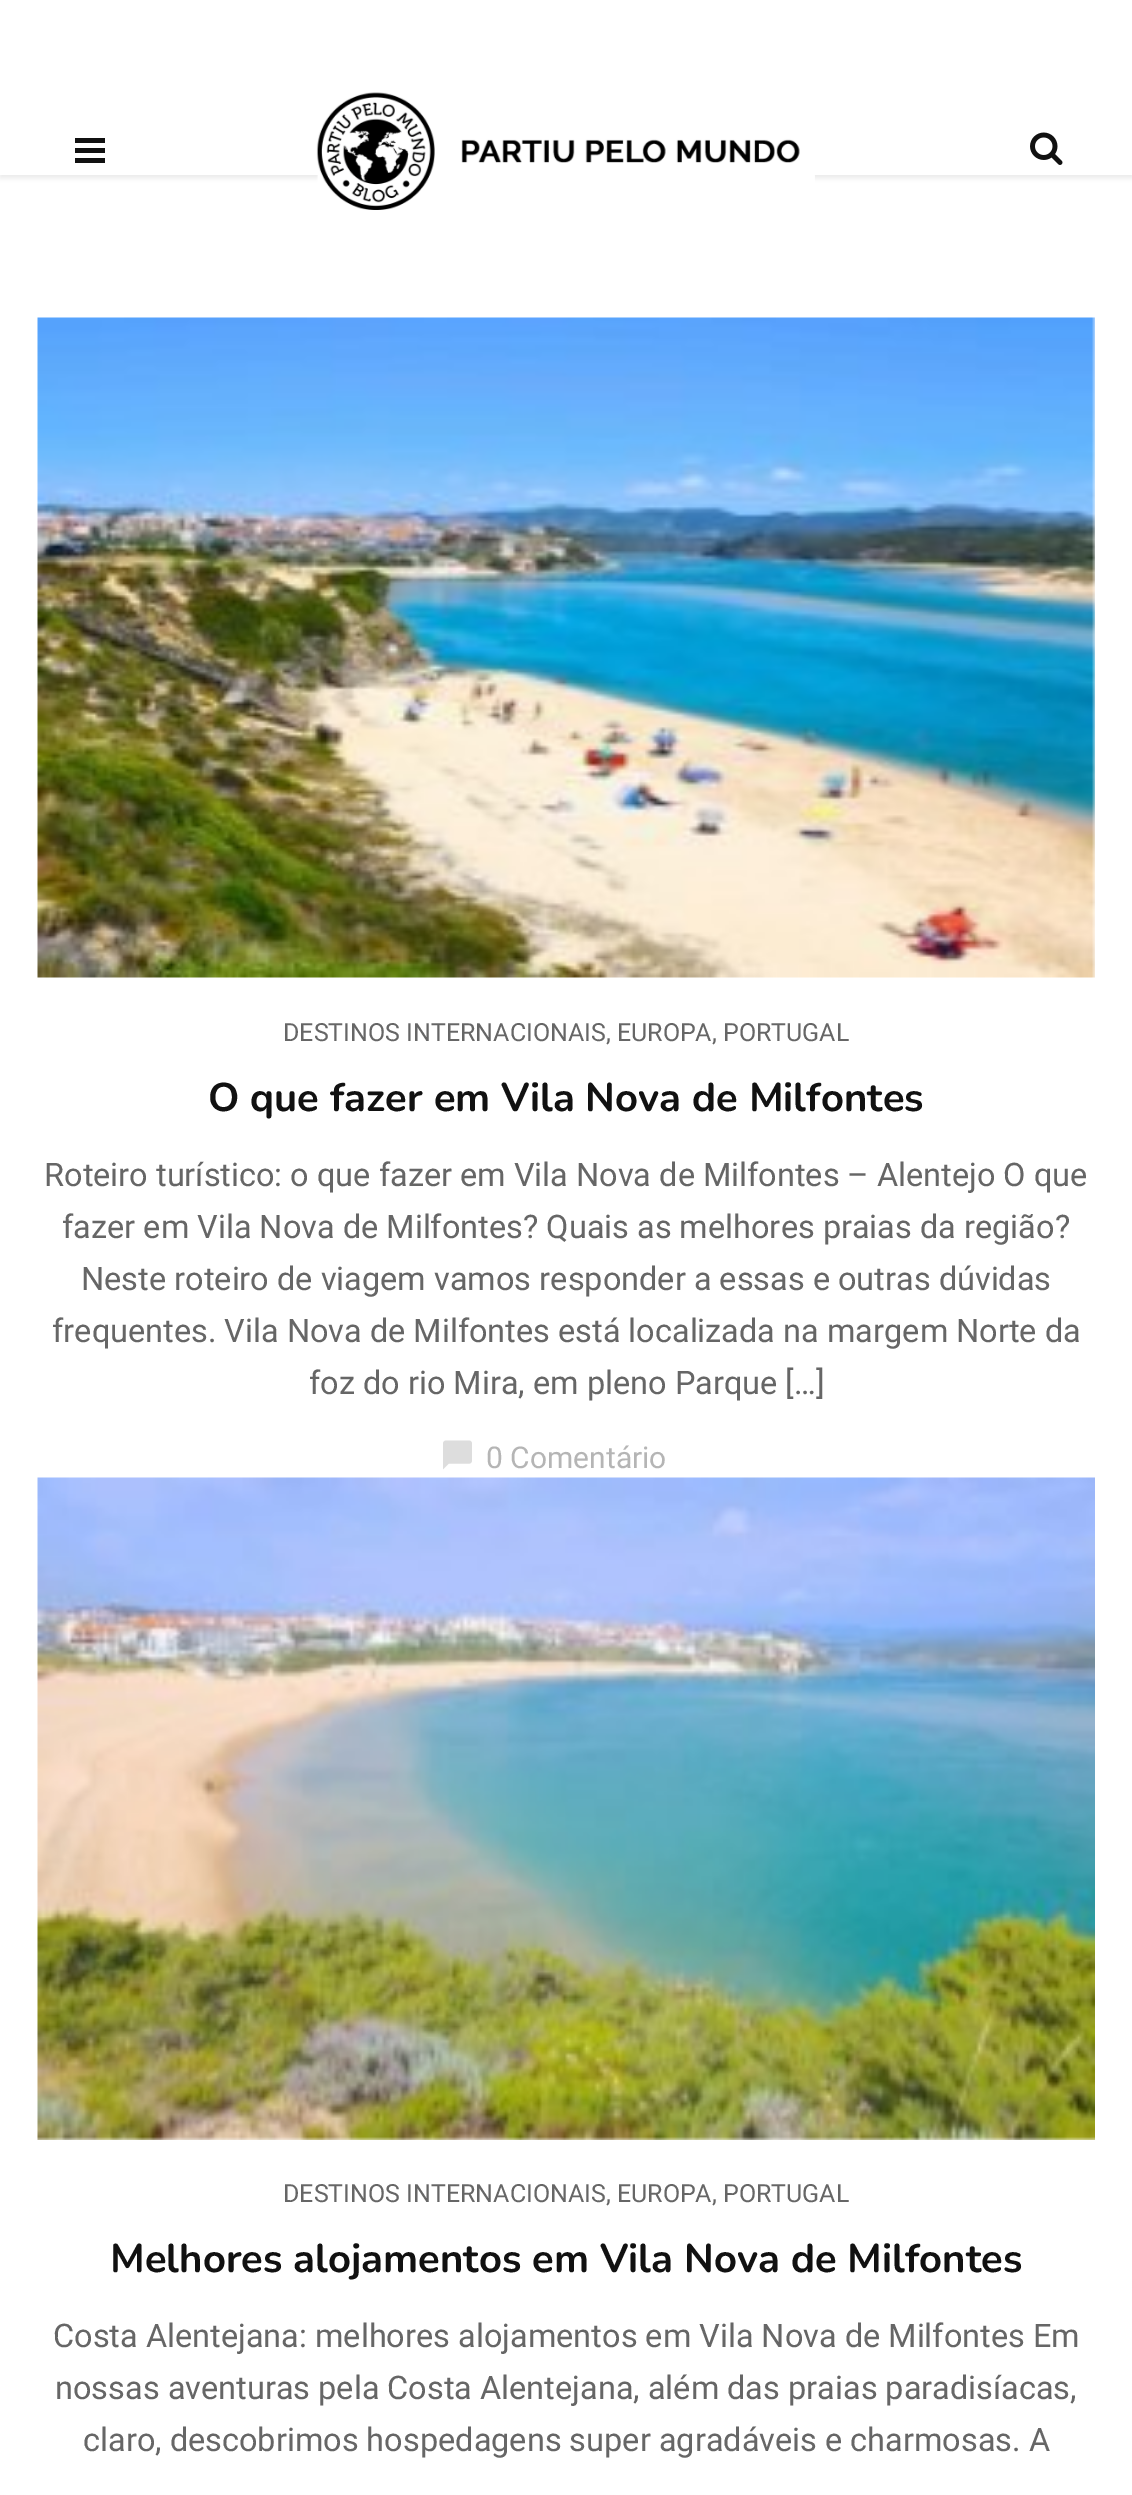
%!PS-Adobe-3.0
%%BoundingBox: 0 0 1132 2495
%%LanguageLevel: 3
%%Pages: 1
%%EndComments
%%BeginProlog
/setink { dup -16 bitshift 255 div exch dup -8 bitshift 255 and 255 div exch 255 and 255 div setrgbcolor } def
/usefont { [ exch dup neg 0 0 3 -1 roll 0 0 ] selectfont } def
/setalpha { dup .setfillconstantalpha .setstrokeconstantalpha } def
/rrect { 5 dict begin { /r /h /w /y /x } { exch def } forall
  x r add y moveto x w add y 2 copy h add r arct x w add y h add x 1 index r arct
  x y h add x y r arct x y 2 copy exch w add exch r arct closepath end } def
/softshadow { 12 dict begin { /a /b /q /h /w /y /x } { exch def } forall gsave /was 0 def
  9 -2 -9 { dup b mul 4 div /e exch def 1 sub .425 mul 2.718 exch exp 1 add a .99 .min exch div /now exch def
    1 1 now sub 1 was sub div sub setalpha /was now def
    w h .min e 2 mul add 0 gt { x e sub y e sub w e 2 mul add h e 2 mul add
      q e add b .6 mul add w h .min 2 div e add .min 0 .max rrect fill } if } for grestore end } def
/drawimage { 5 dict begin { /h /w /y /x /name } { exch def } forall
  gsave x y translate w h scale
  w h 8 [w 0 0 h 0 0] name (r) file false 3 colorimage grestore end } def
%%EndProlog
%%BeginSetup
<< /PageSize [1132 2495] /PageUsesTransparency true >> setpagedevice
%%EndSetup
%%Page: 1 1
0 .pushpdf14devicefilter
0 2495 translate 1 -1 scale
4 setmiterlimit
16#FFFFFF setink
0 0 1132 2495 rectfill
16#EAEAEA setink
0 3 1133 175 0 2.5 1 softshadow
[
    [0 0 1132 175 16#FFFFFF]
    [75 138 30 5 16#111111]
    [75 148 30 5 16#111111]
    [75 158 30 5 16#111111]
] { aload pop setink rectfill } forall
(img1.raw) 316 92 499 118 drawimage
(img2.raw) 1030 132 33 33 drawimage
(img3.raw) 37 317 1058 661 drawimage
/Roboto-Regular 25 usefont
16#666666 setink
283 1041 moveto (DESTINOS INTERNACIONAIS, EUROPA, PORTUGAL) show
/Nunito-ExtraLight 40 usefont
16#111111 setink
208 1111 moveto (O que fazer em Vila Nova de Milfontes) show
/Roboto-Regular 32.5 usefont
16#666666 setink
[
    [(Roteiro turístico: o que fazer em Vila Nova de Milfontes – Alentejo O que) 44 1186]
    [(fazer em Vila Nova de Milfontes? Quais as melhores praias da região?) 62 1238]
    [(Neste roteiro de viagem vamos responder a essas e outras dúvidas) 81 1290]
    [(frequentes. Vila Nova de Milfontes está localizada na margem Norte da) 52 1342]
    [(foz do rio Mira, em pleno Parque […]) 309 1394]
] { aload pop moveto show } forall
(img4.raw) 443 1440 29 30 drawimage
/Roboto-Regular 30 usefont
16#B5B5B5 setink
486 1468 moveto (0 Comentário) show
(img5.raw) 37 1477 1058 663 drawimage
/Roboto-Regular 25 usefont
16#666666 setink
283 2202 moveto (DESTINOS INTERNACIONAIS, EUROPA, PORTUGAL) show
/Nunito-ExtraLight 40 usefont
16#111111 setink
110 2272 moveto (Melhores alojamentos em Vila Nova de Milfontes) show
/Roboto-Regular 32.5 usefont
16#666666 setink
[
    [(Costa Alentejana: melhores alojamentos em Vila Nova de Milfontes Em) 53 2347]
    [(nossas aventuras pela Costa Alentejana, além das praias paradisíacas,) 55 2399]
    [(claro, descobrimos hospedagens super agradáveis e charmosas. A) 83 2451]
] { aload pop moveto show } forall
.poppdf14devicefilter showpage
%%EOF
